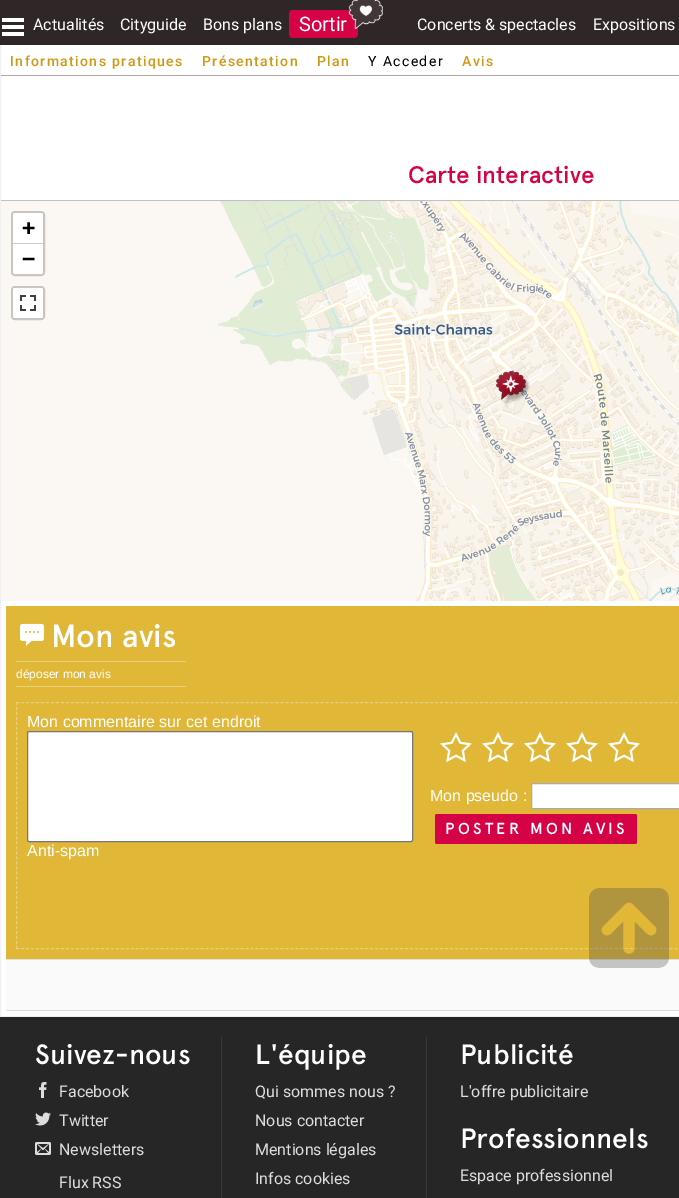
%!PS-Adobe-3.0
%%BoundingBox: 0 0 679 1198
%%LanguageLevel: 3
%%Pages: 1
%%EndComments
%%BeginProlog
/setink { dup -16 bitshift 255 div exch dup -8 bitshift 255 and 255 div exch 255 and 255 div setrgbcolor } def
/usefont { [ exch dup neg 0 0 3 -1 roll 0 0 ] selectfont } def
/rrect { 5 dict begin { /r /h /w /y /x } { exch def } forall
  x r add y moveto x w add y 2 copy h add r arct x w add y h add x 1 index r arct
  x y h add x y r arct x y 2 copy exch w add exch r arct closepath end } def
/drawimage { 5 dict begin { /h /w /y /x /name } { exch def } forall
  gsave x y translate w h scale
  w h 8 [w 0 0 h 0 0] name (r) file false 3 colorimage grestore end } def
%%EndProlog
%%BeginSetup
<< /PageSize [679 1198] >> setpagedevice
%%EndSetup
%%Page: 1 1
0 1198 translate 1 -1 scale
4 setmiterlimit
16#FFFFFF setink
0 0 679 1198 rectfill
16#F0F0F0 setink
0.5 -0.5 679 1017 rectstroke
16#2F2727 setink
0 0 679 45 rectfill
(img1.raw) 2 18 22 18 drawimage
/Roboto-Regular 16 usefont
16#FFFFFF setink
[
    [(Actualités) 33 30]
    [(Cityguide) 120 30]
    [(Bons plans) 203 30]
] { aload pop moveto show } forall
16#D50245 setink
289 10 69 28 4 rrect fill
/Roboto-Regular 20 usefont
16#FFFFFF setink
299 31 moveto (Sortir) show
(img2.raw) 348 0 35 29 drawimage
/Roboto-Regular 16 usefont
417 30 moveto (Concerts & spectacles) show
593 30 moveto (Expositions) show
16#AFA4A4 setink
1 75 678 1 rectfill
/Roboto-Medium 14 usefont
16#D09816 setink
10 66 moveto 1.4 0 (Informations pratiques) ashow
202 66 moveto 1.4 0 (Présentation) ashow
317 66 moveto 1.4 0 (Plan) ashow
/Roboto-Regular 14 usefont
16#000000 setink
368 66 moveto 1.4 0 (Y Acceder) ashow
/Roboto-Medium 14 usefont
16#D09816 setink
462 66 moveto 1.4 0 (Avis) ashow
/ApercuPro-Medium 24 usefont
16#D50245 setink
408 183 moveto (Carte interactive) show
16#C1C1C1 setink
1 200 678 1 rectfill
16#FBF8F3 setink
1 201 130 400 rectfill
(img3.raw) 131 201 256 168 drawimage
(img4.raw) 387 201 256 168 drawimage
(img5.raw) 643 201 36 168 drawimage
(img6.raw) 131 369 256 232 drawimage
(img7.raw) 387 369 256 232 drawimage
(img8.raw) 643 369 36 232 drawimage
(img10.raw) 503 376 27 30 drawimage
(img9.raw) 496 371 30 29 drawimage
16#C9C6C2 setink
2 setlinewidth
12 212 32 63 3 rrect stroke
16#FFFFFF setink
15 213 moveto 41 213 lineto 42 213 43 214 43 215 curveto 43 244 lineto 13 244 lineto 13 215 lineto 13 214 14 213 15 213 curveto closepath fill
16#CCCCCC setink
13 243 30 1 rectfill
/DejaVuSansMono-Bold 22 usefont
16#000000 setink
22 235 moveto (+) show
16#FFFFFF setink
13 244 moveto 43 244 lineto 43 272 lineto 43 273 42 274 41 274 curveto 15 274 lineto 14 274 13 273 13 272 curveto closepath fill
16#000000 setink
22 266 moveto (−) show
16#C9C6C2 setink
12 287 32 32 3 rrect stroke
16#FFFFFF setink
13 288 30 30 2 rrect fill
(img11.raw) 20 295 16 16 drawimage
16#E1B738 setink
6 606 673 353 rectfill
(img12.raw) 20 623 24 23 drawimage
/ApercuPro-Medium 32 usefont
16#FFFFFF setink
51 647 moveto (Mon avis) show
16#EBCE78 setink
16 661 170 1 rectfill
16 686 170 1 rectfill
/LiberationSans-Regular 12 usefont
16#FFFFFF setink
16 678 moveto (déposer mon avis) show
16#EBCE78 setink
1 setlinewidth
[3 1.99] 0 setdash
16 702.5 moveto 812 702.5 lineto stroke
16 948.5 moveto 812 948.5 lineto stroke
[3 1.98] 0 setdash
16.5 702 moveto 16.5 949 lineto stroke
/LiberationSans-Regular 16 usefont
16#FFFFFF setink
27 727 moveto (Mon commentaire sur cet endroit) show
27.5 731.5 385 110 1.5 rrect gsave fill grestore
16#767676 setink
[] 0 setdash
stroke
16#FFFFFF setink
27 856 moveto (Anti-spam) show
(img13.raw) 440 732 32 31 drawimage
(img13.raw) 482 732 32 31 drawimage
(img13.raw) 524 732 32 31 drawimage
(img13.raw) 566 732 32 31 drawimage
(img13.raw) 608 732 32 31 drawimage
430 801 moveto (Mon pseudo :) show
531.5 783.5 moveto 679.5 783.5 lineto 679.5 808.5 lineto 531.5 808.5 lineto closepath gsave fill grestore
16#A5ACB2 setink
stroke
16#D50245 setink
435 814 202 30 2 rrect fill
/ApercuPro-Medium 16 usefont
16#FFFFFF setink
445 834 moveto 3.25 0 (POSTER MON AVIS) ashow
[
    [6 960 673 50 16#FAFAFA]
    [6 959 673 1 16#DCE0E0]
    [6 1010 673 1 16#DCE0E0]
] { aload pop setink rectfill } forall
(img14.raw) 589 888 80 80 drawimage
16#262626 setink
0 1017 679 181 rectfill
16#3B3A3A setink
221 1037 1 161 rectfill
/ApercuPro-Medium 28 usefont
16#FFFFFF setink
35 1064 moveto (Suivez-nous) show
(img15.raw) 39 1082 8 16 drawimage
/Roboto-Regular 16 usefont
16#DDDDDD setink
59 1097 moveto (Facebook) show
(img16.raw) 35 1112 16 14 drawimage
59 1126 moveto (Twitter) show
(img17.raw) 35 1142 16 13 drawimage
59 1155 moveto (Newsletters) show
59 1188 moveto (Flux RSS) show
16#3B3A3A setink
426 1037 1 161 rectfill
/ApercuPro-Medium 28 usefont
16#FFFFFF setink
255 1064 moveto (L'équipe) show
/Roboto-Regular 16 usefont
16#DDDDDD setink
[
    [(Qui sommes nous ?) 255 1097]
    [(Nous contacter) 255 1126]
    [(Mentions légales) 255 1155]
    [(Infos cookies) 255 1184]
] { aload pop moveto show } forall
/ApercuPro-Medium 28 usefont
16#FFFFFF setink
460 1064 moveto (Publicité) show
/Roboto-Regular 16 usefont
16#DDDDDD setink
460 1097 moveto (L'offre publicitaire) show
/ApercuPro-Medium 28 usefont
16#FFFFFF setink
460 1148 moveto (Professionnels) show
/Roboto-Regular 16 usefont
16#DDDDDD setink
460 1181 moveto (Espace professionnel) show
showpage
%%EOF
